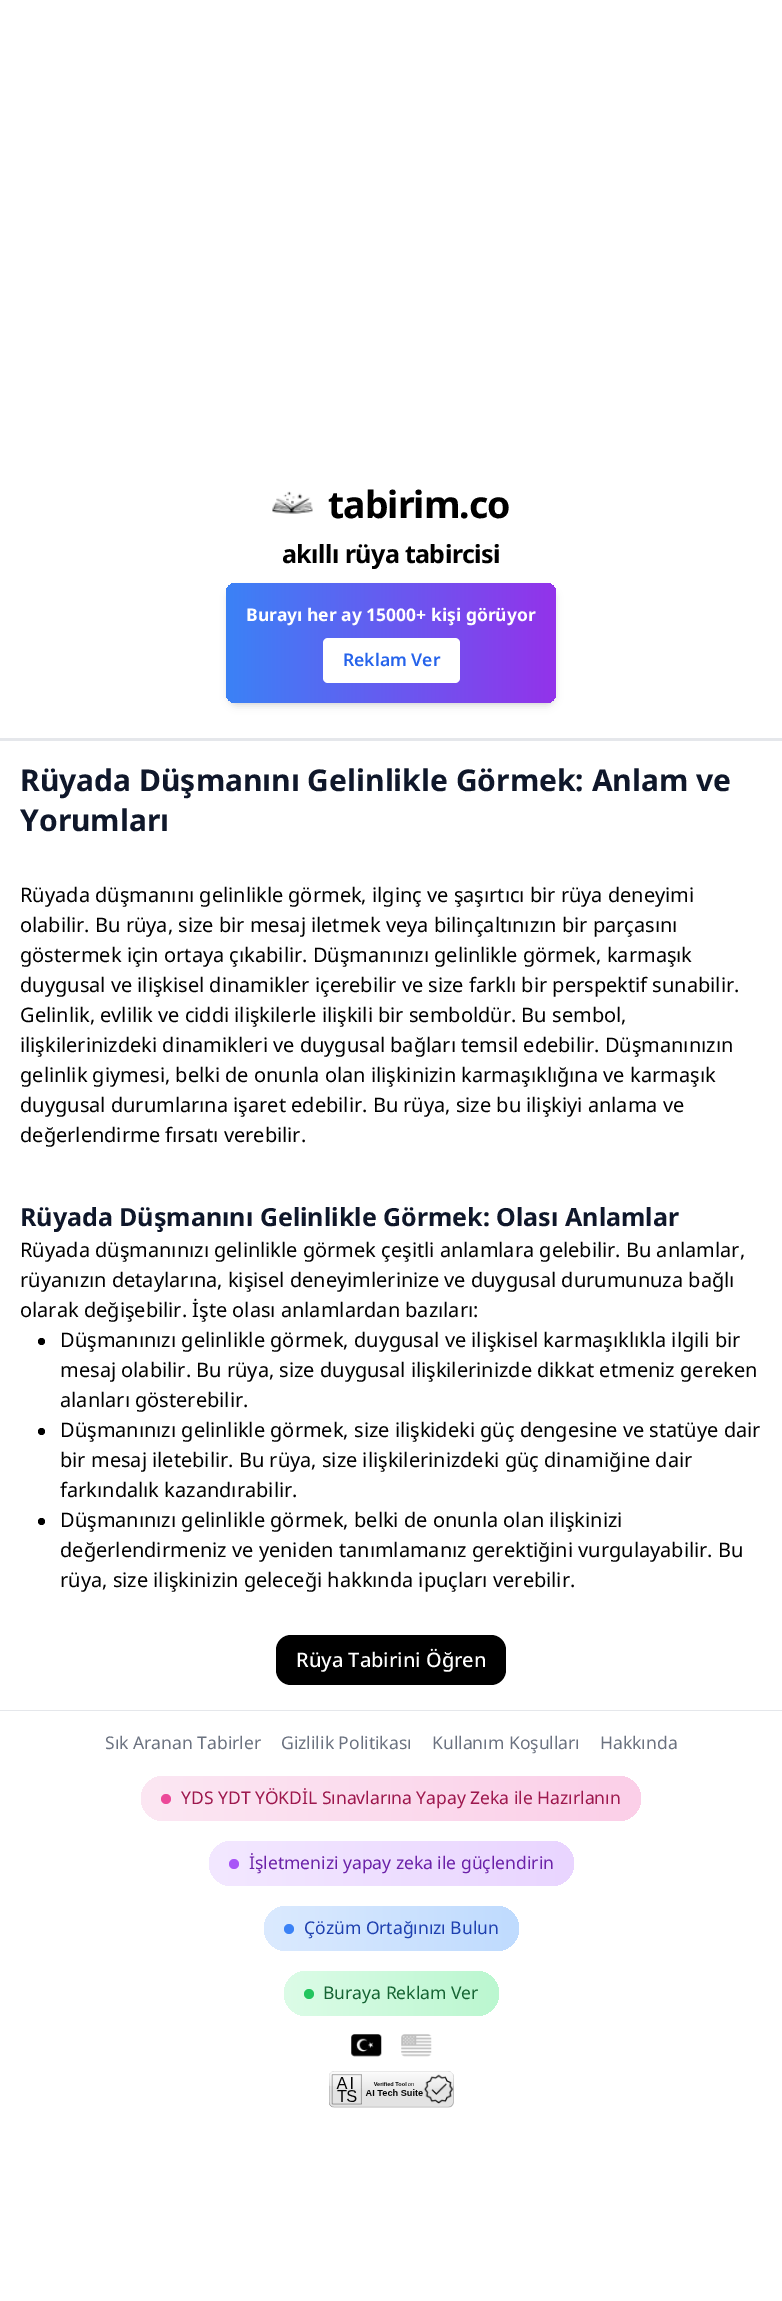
%!PS-Adobe-3.0
%%BoundingBox: 0 0 782 2301
%%LanguageLevel: 3
%%Pages: 1
%%EndComments
%%BeginProlog
/setink { dup -16 bitshift 255 div exch dup -8 bitshift 255 and 255 div exch 255 and 255 div setrgbcolor } def
/usefont { [ exch dup neg 0 0 3 -1 roll 0 0 ] selectfont } def
/setalpha { dup .setfillconstantalpha .setstrokeconstantalpha } def
/disc { newpath 0 360 arc closepath } def
/rrect { 5 dict begin { /r /h /w /y /x } { exch def } forall
  x r add y moveto x w add y 2 copy h add r arct x w add y h add x 1 index r arct
  x y h add x y r arct x y 2 copy exch w add exch r arct closepath end } def
/softshadow { 12 dict begin { /a /b /q /h /w /y /x } { exch def } forall gsave /was 0 def
  9 -2 -9 { dup b mul 4 div /e exch def 1 sub .425 mul 2.718 exch exp 1 add a .99 .min exch div /now exch def
    1 1 now sub 1 was sub div sub setalpha /was now def
    w h .min e 2 mul add 0 gt { x e sub y e sub w e 2 mul add h e 2 mul add
      q e add b .6 mul add w h .min 2 div e add .min 0 .max rrect fill } if } for grestore end } def
/drawimage { 5 dict begin { /h /w /y /x /name } { exch def } forall
  gsave x y translate w h scale
  w h 8 [w 0 0 h 0 0] name (r) file false 3 colorimage grestore end } def
%%EndProlog
%%BeginSetup
<< /PageSize [782 2301] /PageUsesTransparency true >> setpagedevice
%%EndSetup
%%Page: 1 1
0 .pushpdf14devicefilter
0 2301 translate 1 -1 scale
4 setmiterlimit
16#FFFFFF setink
0 0 782 2301 rectfill
16#E5E7EB setink
0 738 782 3 rectfill
(img1.raw) 272 491 41 23 drawimage
/NotoSans-Bold 37.5 usefont
16#000000 setink
328 518 moveto -1 0 (tabirim.co) ashow
/NotoSans-Bold 25 usefont
282 563 moveto -0.6 0 (akıllı rüya tabircisi) ashow
229 588 325 115 8 2.5 0.1 softshadow
228 589 327 117 9 4 0.1 softshadow
gsave 226 583 330 120 10 rrect clip newpath
<< /ShadingType 2 /ColorSpace /DeviceRGB /Coords [226 643 556 643] /Extend [true true] /Function << /FunctionType 2 /Domain [0 1] /C0 [0.231 0.51 0.965] /C1 [0.576 0.2 0.918] /N 1 >> >> shfill grestore
/NotoSans-Bold 17.5 usefont
16#FFFFFF setink
246 621 moveto (Burayı her ay 15000+ kişi görüyor) show
323 638 137 45 5 rrect fill
/NotoSans-SemiBold 17.5 usefont
16#2563EB setink
343 666 moveto (Reklam Ver) show
/NotoSans-Bold 30 usefont
16#0F172A setink
20 791 moveto (Rüyada Düşmanını Gelinlikle Görmek: Anlam ve) show
20 831 moveto (Yorumları) show
/NotoSans-Regular 20 usefont
16#000000 setink
[
    [(Rüyada düşmanını gelinlikle görmek, ilginç ve şaşırtıcı bir rüya deneyimi) 20 902]
    [(olabilir. Bu rüya, size bir mesaj iletmek veya bilinçaltınızın bir parçasını) 20 932]
    [(göstermek için ortaya çıkabilir. Düşmanınızı gelinlikle görmek, karmaşık) 20 962]
    [(duygusal ve ilişkisel dinamikler içerebilir ve size farklı bir perspektif sunabilir.) 20 992]
    [(Gelinlik, evlilik ve ciddi ilişkilerle ilişkili bir semboldür. Bu sembol,) 20 1022]
    [(ilişkilerinizdeki dinamikleri ve duygusal bağları temsil edebilir. Düşmanınızın) 20 1052]
    [(gelinlik giymesi, belki de onunla olan ilişkinizin karmaşıklığına ve karmaşık) 20 1082]
    [(duygusal durumlarına işaret edebilir. Bu rüya, size bu ilişkiyi anlama ve) 20 1112]
    [(değerlendirme fırsatı verebilir.) 20 1142]
] { aload pop moveto show } forall
/NotoSans-Bold 25 usefont
16#0F172A setink
20 1226 moveto (Rüyada Düşmanını Gelinlikle Görmek: Olası Anlamlar) show
/NotoSans-Regular 20 usefont
16#000000 setink
[
    [(Rüyada düşmanınızı gelinlikle görmek çeşitli anlamlara gelebilir. Bu anlamlar,) 20 1257]
    [(rüyanızın detaylarına, kişisel deneyimlerinize ve duygusal durumunuza bağlı) 20 1287]
    [(olarak değişebilir. İşte olası anlamlardan bazıları:) 20 1317]
] { aload pop moveto show } forall
41.5 1341.5 3.5 disc fill
[
    [(Düşmanınızı gelinlikle görmek, duygusal ve ilişkisel karmaşıklıkla ilgili bir) 60 1347]
    [(mesaj olabilir. Bu rüya, size duygusal ilişkilerinizde dikkat etmeniz gereken) 60 1377]
    [(alanları gösterebilir.) 60 1407]
] { aload pop moveto show } forall
41.5 1431.5 3.5 disc fill
[
    [(Düşmanınızı gelinlikle görmek, size ilişkideki güç dengesine ve statüye dair) 60 1437]
    [(bir mesaj iletebilir. Bu rüya, size ilişkilerinizdeki güç dinamiğine dair) 60 1467]
    [(farkındalık kazandırabilir.) 60 1497]
] { aload pop moveto show } forall
41.5 1521.5 3.5 disc fill
[
    [(Düşmanınızı gelinlikle görmek, belki de onunla olan ilişkinizi) 60 1527]
    [(değerlendirmeniz ve yeniden tanımlamanız gerektiğini vurgulayabilir. Bu) 60 1557]
    [(rüya, size ilişkinizin geleceği hakkında ipuçları verebilir.) 60 1587]
] { aload pop moveto show } forall
276 1635 230 50 15 rrect fill
/NotoSans-Medium 20 usefont
16#FFFFFF setink
296 1667 moveto (Rüya Tabirini Öğren) show
16#E5E7EB setink
0 1710 782 1 rectfill
/NotoSans-Regular 17.5 usefont
16#6B7280 setink
[
    [(Sık Aranan Tabirler) 105 1749]
    [(Gizlilik Politikası) 281 1749]
    [(Kullanım Koşulları) 432 1749]
    [(Hakkında) 600 1749]
] { aload pop moveto show } forall
gsave 141 1776 500 45 22.5 rrect clip newpath
<< /ShadingType 2 /ColorSpace /DeviceRGB /Coords [141 1799 641 1799] /Extend [true true] /Function << /FunctionType 2 /Domain [0 1] /C0 [0.988 0.906 0.953] /C1 [0.984 0.812 0.91] /N 1 >> >> shfill grestore
16#EC4899 setink
166 1799 5 disc fill
16#9D174D setink
181 1804 moveto (YDS YDT YÖKDİL Sınavlarına Yapay Zeka ile Hazırlanın) show
gsave 209 1841 365 45 22.5 rrect clip newpath
<< /ShadingType 2 /ColorSpace /DeviceRGB /Coords [209 1864 574 1864] /Extend [true true] /Function << /FunctionType 2 /Domain [0 1] /C0 [0.953 0.91 1] /C1 [0.914 0.835 1] /N 1 >> >> shfill grestore
16#A855F7 setink
234 1864 5 disc fill
16#6B21A8 setink
249 1869 moveto (İşletmenizi yapay zeka ile güçlendirin) show
gsave 264 1906 255 45 22.5 rrect clip newpath
<< /ShadingType 2 /ColorSpace /DeviceRGB /Coords [264 1929 519 1929] /Extend [true true] /Function << /FunctionType 2 /Domain [0 1] /C0 [0.859 0.918 0.996] /C1 [0.749 0.859 0.996] /N 1 >> >> shfill grestore
16#3B82F6 setink
289 1929 5 disc fill
16#1E40AF setink
304 1934 moveto (Çözüm Ortağınızı Bulun) show
gsave 284 1971 215 45 22.5 rrect clip newpath
<< /ShadingType 2 /ColorSpace /DeviceRGB /Coords [284 1994 499 1994] /Extend [true true] /Function << /FunctionType 2 /Domain [0 1] /C0 [0.863 0.988 0.906] /C1 [0.733 0.969 0.816] /N 1 >> >> shfill grestore
16#22C55E setink
309 1994 5 disc fill
16#166534 setink
323 1999 moveto (Buraya Reklam Ver) show
(img2.raw) 351 2034 31 23 drawimage
(img3.raw) 401 2034 31 23 drawimage
(img4.raw) 329 2071 125 37 drawimage
.poppdf14devicefilter showpage
%%EOF
